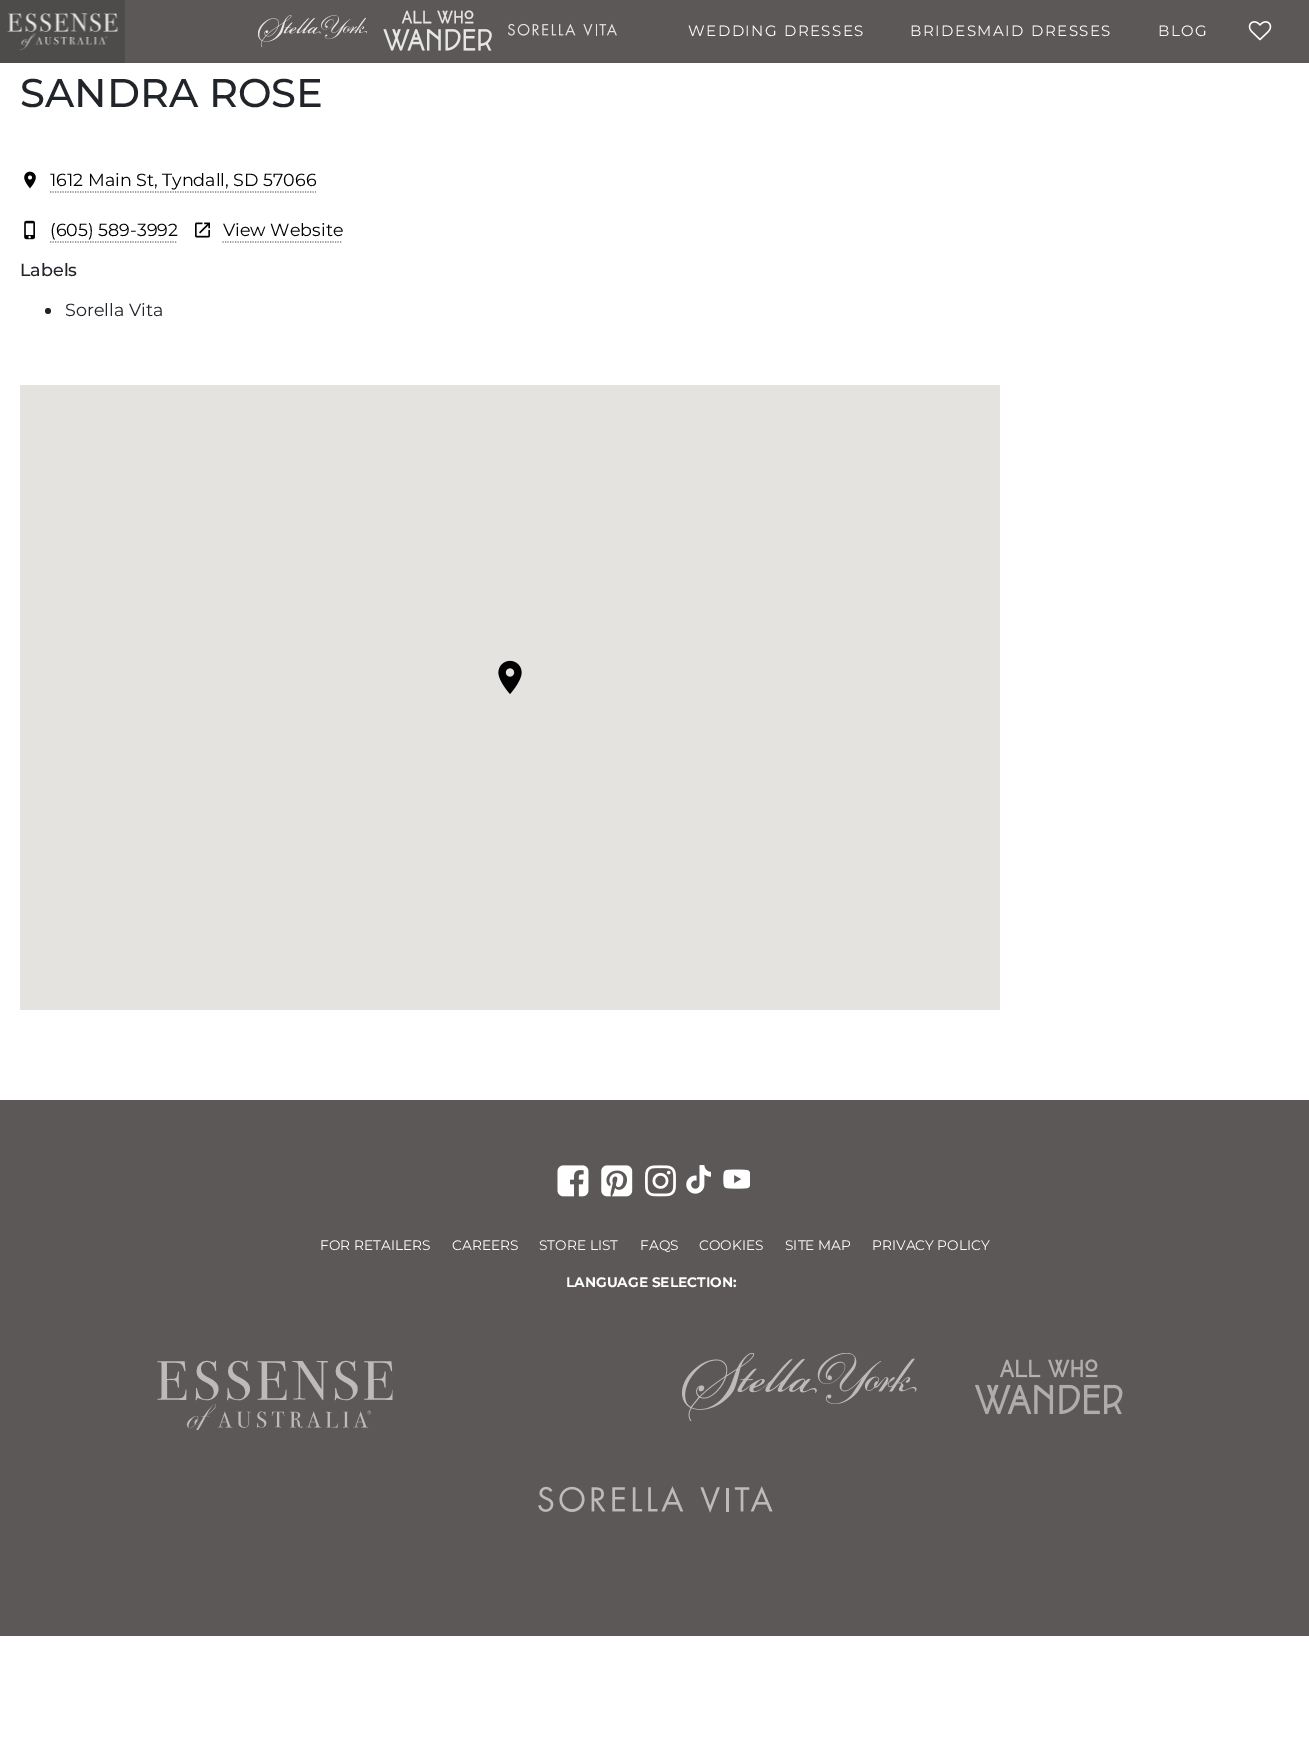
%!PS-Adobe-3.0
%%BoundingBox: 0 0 1309 1746
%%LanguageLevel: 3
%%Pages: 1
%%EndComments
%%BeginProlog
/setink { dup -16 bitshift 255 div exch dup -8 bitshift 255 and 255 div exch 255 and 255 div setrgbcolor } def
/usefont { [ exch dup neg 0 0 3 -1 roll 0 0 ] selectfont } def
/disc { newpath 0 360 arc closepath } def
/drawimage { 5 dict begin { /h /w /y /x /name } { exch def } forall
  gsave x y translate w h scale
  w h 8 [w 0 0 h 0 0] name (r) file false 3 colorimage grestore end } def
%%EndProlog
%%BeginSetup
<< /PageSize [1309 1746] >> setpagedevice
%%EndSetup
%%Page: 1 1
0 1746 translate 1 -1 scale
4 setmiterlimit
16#FFFFFF setink
0 0 1309 1746 rectfill
16#5C5858 setink
125 0 1184 63 rectfill
16#4E4B4B setink
0 0 125 63 rectfill
(img1.raw) 7 13 111 37 drawimage
(img2.raw) 258 15 109 32 drawimage
(img3.raw) 383 10 109 41 drawimage
(img4.raw) 508 23 109 13 drawimage
/Montserrat-Regular 15 usefont
16#FFFFFF setink
688 36 moveto 1.5 0 (WEDDING DRESSES) ashow
910 36 moveto 1.5 0 (BRIDESMAID DRESSES) ashow
1158 36 moveto 1.5 0 (BLOG) ashow
(img5.raw) 1248 21 24 20 drawimage
/Montserrat-Medium 40 usefont
16#212529 setink
20 107 moveto (SANDRA ROSE) show
(img6.raw) 24 171 12 18 drawimage
/Montserrat-Regular 17.5 usefont
16#000000 setink
50 186 moveto (1612 Main St, Tyndall, SD 57066) show
16#808080 setink
1.2 setlinewidth
[1.25 1.25] 0 setdash
50 192 moveto 316 192 lineto stroke
(img7.raw) 24 220 11 20 drawimage
16#000000 setink
50 236 moveto (\(605\) 589-3992) show
16#808080 setink
50 242 moveto 177.5 242 lineto stroke
(img8.raw) 195 222 15 16 drawimage
16#000000 setink
223 236 moveto (View Website) show
16#808080 setink
222.5 242 moveto 342.5 242 lineto stroke
/Montserrat-Medium 17.5 usefont
16#212529 setink
20 276 moveto (Labels) show
48 311 3 disc fill
/Montserrat-Regular 17.5 usefont
65 316 moveto (Sorella Vita) show
16#E5E3DF setink
20 385 980 625 rectfill
(img9.raw) 498 660 24 34 drawimage
16#5C5858 setink
0 1100 1309 536 rectfill
(img10.raw) 557 1165 32 32 drawimage
(img11.raw) 601 1165 32 32 drawimage
(img12.raw) 645 1165 31 32 drawimage
(img13.raw) 686 1165 25 29 drawimage
(img14.raw) 723 1169 27 20 drawimage
/Montserrat-Regular 13.75 usefont
16#FFFFFF setink
[
    [(FOR RETAILERS) 320 1250]
    [(CAREERS) 452 1250]
    [(STORE LIST) 539 1250]
    [(FAQS) 640 1250]
    [(COOKIES) 699 1250]
    [(SITE MAP) 785 1250]
    [(PRIVACY POLICY) 872 1250]
] { aload pop moveto show } forall
/Montserrat-Bold 13.75 usefont
566 1287 moveto (LANGUAGE SELECTION:) show
(img15.raw) 157 1360 236 70 drawimage
(img16.raw) 682 1353 235 68 drawimage
(img17.raw) 975 1359 148 56 drawimage
(img18.raw) 538 1486 235 27 drawimage
showpage
%%EOF
